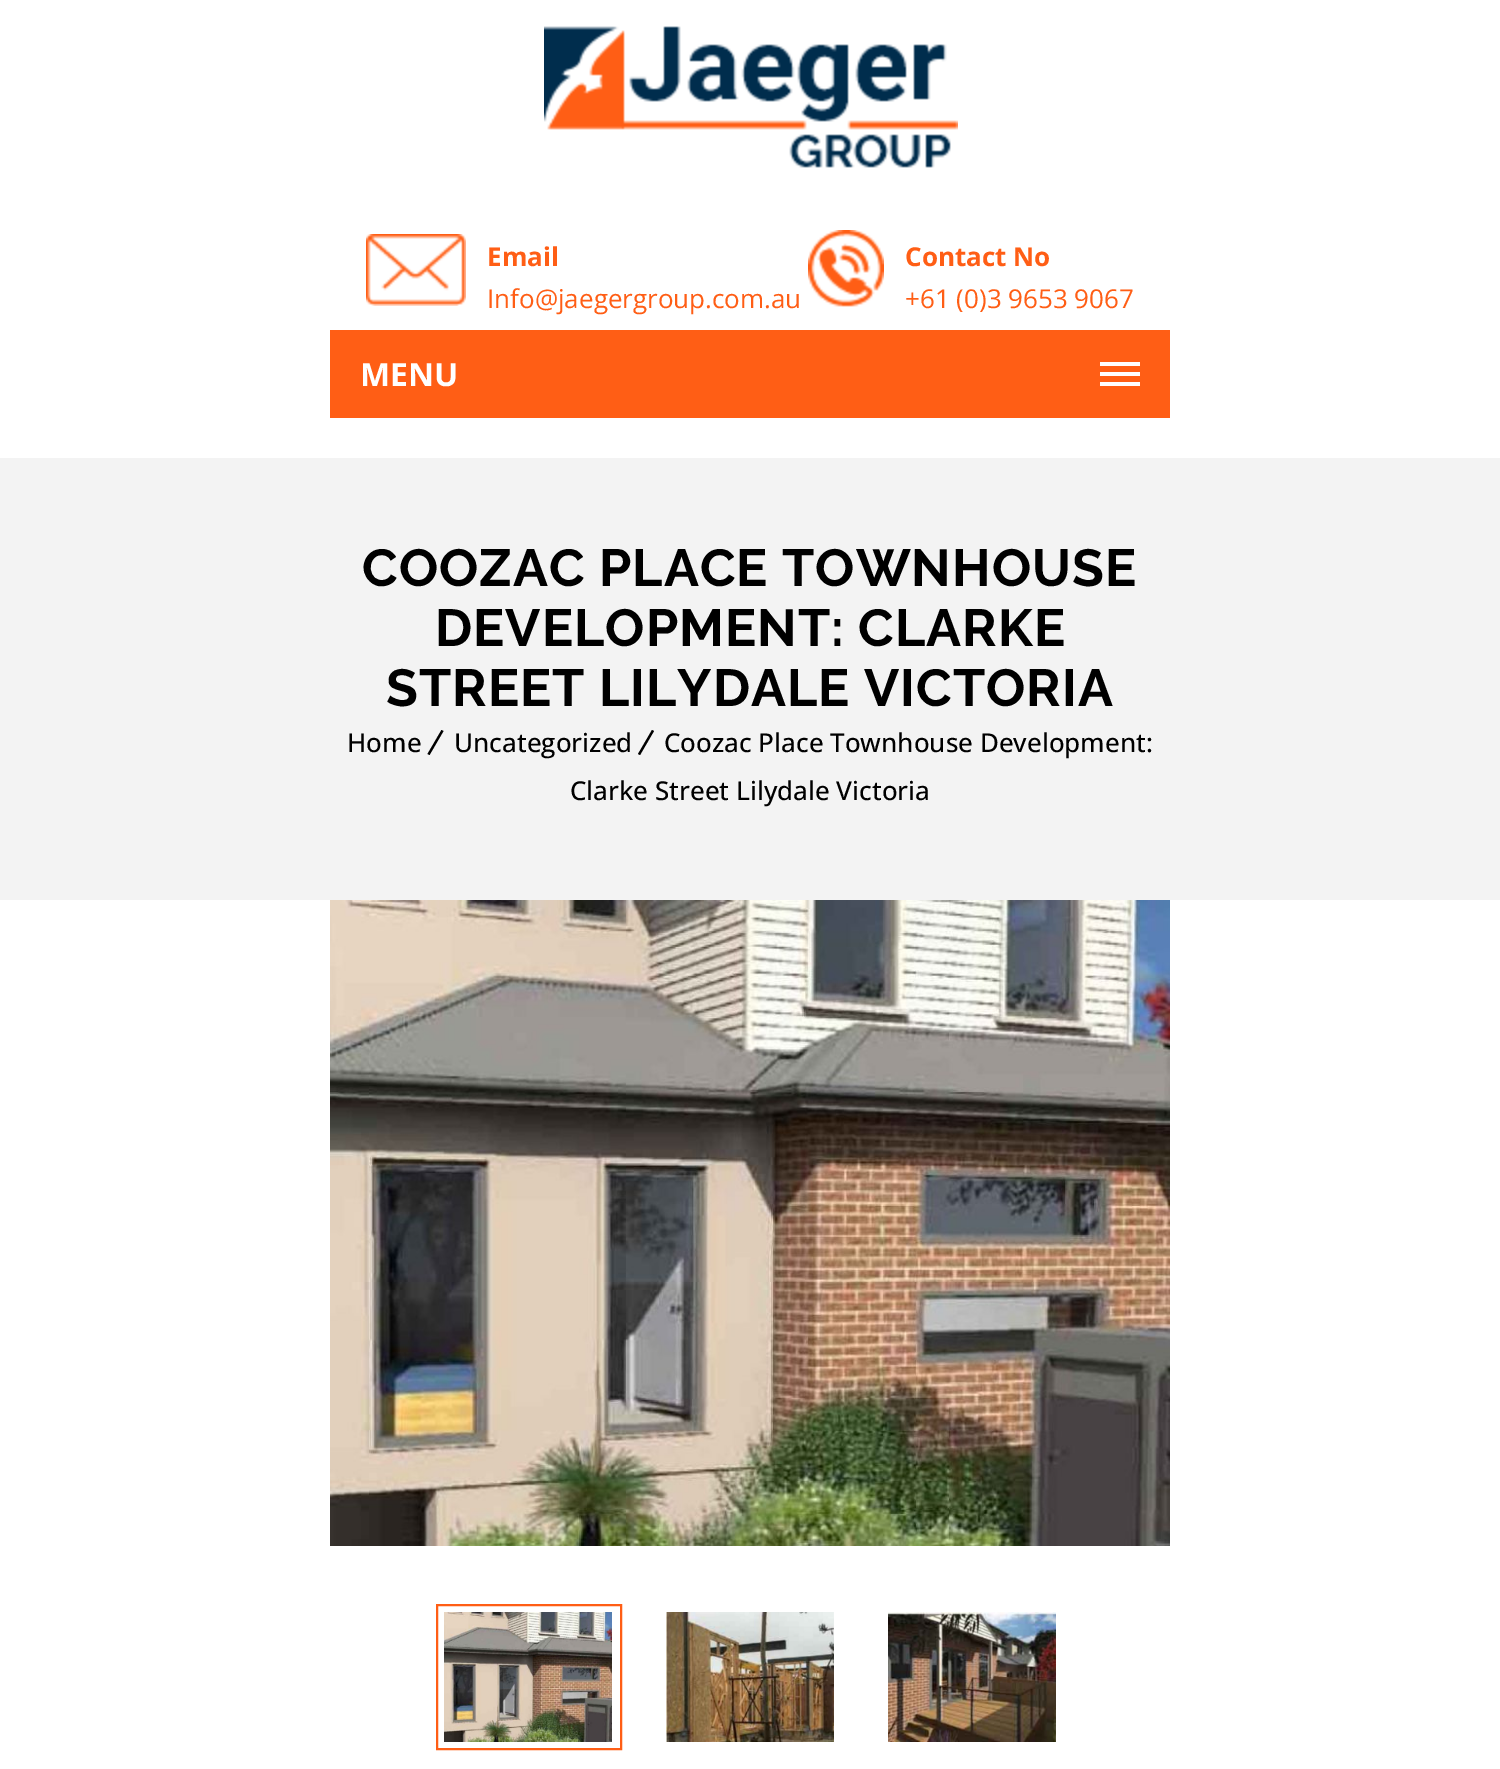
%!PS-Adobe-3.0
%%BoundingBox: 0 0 1500 1769
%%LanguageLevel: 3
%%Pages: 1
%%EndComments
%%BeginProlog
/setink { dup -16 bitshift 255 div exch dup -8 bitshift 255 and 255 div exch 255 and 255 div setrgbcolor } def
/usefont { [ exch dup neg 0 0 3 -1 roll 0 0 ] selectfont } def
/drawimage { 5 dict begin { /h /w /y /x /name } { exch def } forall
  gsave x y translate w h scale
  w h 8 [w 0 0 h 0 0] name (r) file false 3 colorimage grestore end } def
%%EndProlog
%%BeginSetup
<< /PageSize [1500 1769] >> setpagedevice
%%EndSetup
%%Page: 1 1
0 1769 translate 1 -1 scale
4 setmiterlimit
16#FFFFFF setink
0 0 1500 1769 rectfill
(img1.raw) 544 26 414 142 drawimage
(img2.raw) 366 234 100 72 drawimage
/OpenSans-Bold 26 usefont
16#FF5E15 setink
487 266 moveto (Email) show
/OpenSans-Regular 26 usefont
487 308 moveto (Info@jaegergroup.com.au) show
(img3.raw) 808 230 76 77 drawimage
/OpenSans-Bold 26 usefont
905 266 moveto (Contact No) show
/OpenSans-Regular 26 usefont
905 308 moveto (+61 \(0\)3 9653 9067) show
330 330 840 88 rectfill
/OpenSans-Bold 32 usefont
16#FFFFFF setink
360 386 moveto (MENU) show
[
    [1100 372 40 4 16#FFFFFF]
    [1100 362 40 4 16#FFFFFF]
    [1100 382 40 4 16#FFFFFF]
    [0 458 1500 442 16#F3F3F3]
] { aload pop setink rectfill } forall
/Raleway-Bold 52 usefont
16#000000 setink
362 586 moveto 1 0 (COOZAC PLACE TOWNHOUSE) ashow
435 646 moveto 1 0 (DEVELOPMENT: CLARKE) ashow
386 706 moveto 1 0 (STREET LILYDALE VICTORIA) ashow
/OpenSans-Medium 26 usefont
347 752 moveto (Home) show
441.5 730 moveto 443.5 731 lineto 429.5 755 lineto 427.5 754 lineto closepath fill
454 752 moveto (Uncategorized) show
652 730 moveto 654 731 lineto 640 755 lineto 638 754 lineto closepath fill
664 752 moveto (Coozac Place Townhouse Development:) show
570 800 moveto (Clarke Street Lilydale Victoria) show
(img4.raw) 330 900 840 646 drawimage
(img5.raw) 444 1612 168 130 drawimage
16#FF5E15 setink
2 setlinewidth
437 1605 184 144 rectstroke
(img6.raw) 666 1612 168 130 drawimage
(img7.raw) 888 1612 168 130 drawimage
showpage
%%EOF
